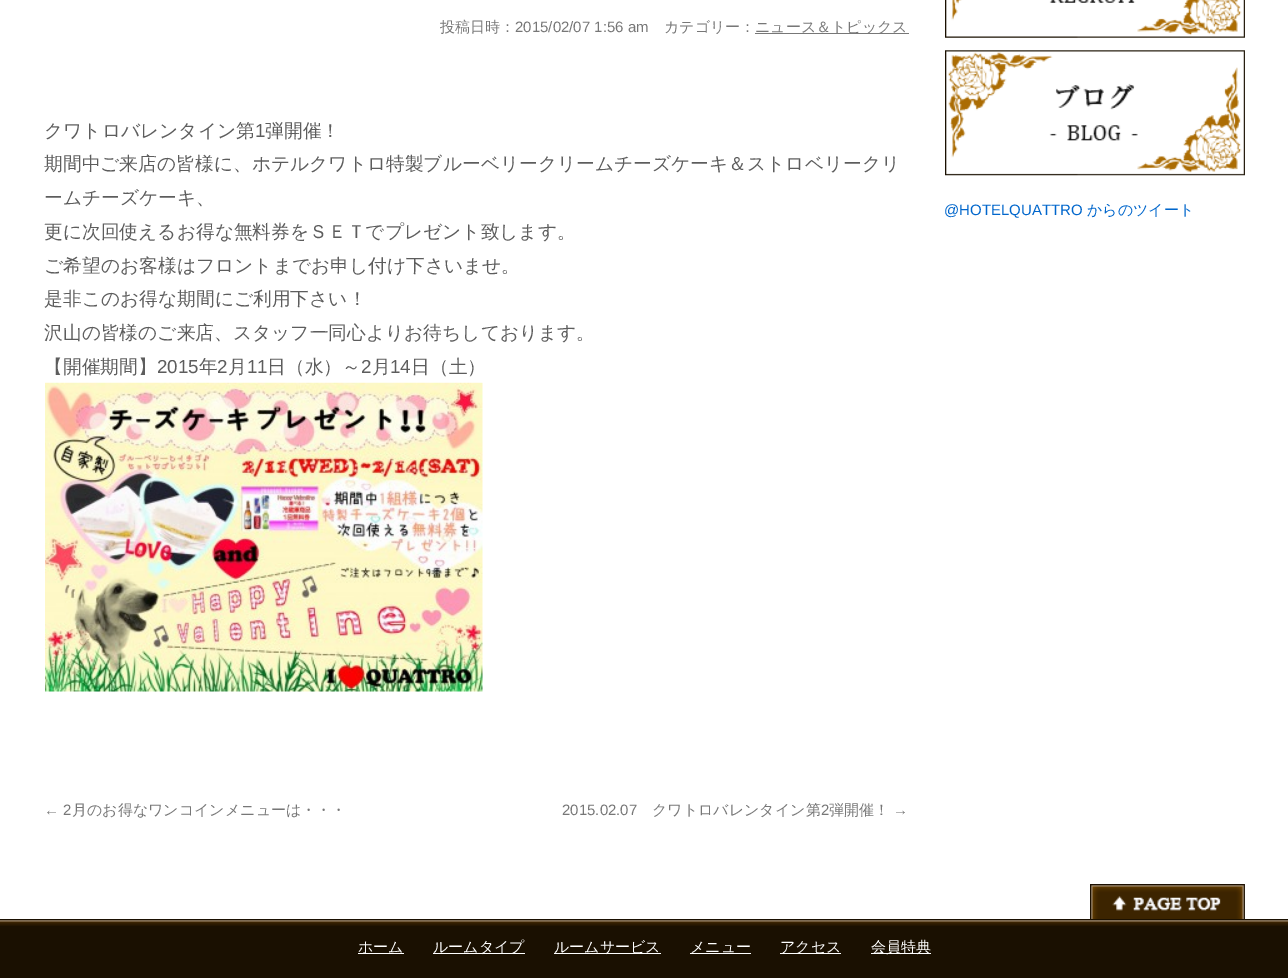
%!PS-Adobe-3.0
%%BoundingBox: 0 0 1288 978
%%LanguageLevel: 3
%%Pages: 1
%%EndComments
%%BeginProlog
/setink { dup -16 bitshift 255 div exch dup -8 bitshift 255 and 255 div exch 255 and 255 div setrgbcolor } def
/usefont { [ exch dup neg 0 0 3 -1 roll 0 0 ] selectfont } def
/drawimage { 5 dict begin { /h /w /y /x /name } { exch def } forall
  gsave x y translate w h scale
  w h 8 [w 0 0 h 0 0] name (r) file false 3 colorimage grestore end } def
%%EndProlog
%%BeginSetup
<< /PageSize [1288 978] >> setpagedevice
%%EndSetup
%%Page: 1 1
0 978 translate 1 -1 scale
4 setmiterlimit
16#FFFFFF setink
0 0 1288 978 rectfill
/WenQuanYiZenHei-Medium 15 usefont
16#777777 setink
440 32 moveto (投稿日時：) show
/LiberationSans-Regular 15 usefont
515 32 moveto (2015/02/07 1:56 am) show
/WenQuanYiZenHei-Medium 15 usefont
664 32 moveto (カテゴリー：) show
755 33 154 1 rectfill
755 32 moveto (ニュース＆トピックス) show
/WenQuanYiZenHei-Medium 18.75 usefont
16#5D5D5D setink
44 137 moveto (クワトロバレンタイン第) show
/LiberationSans-Regular 18.75 usefont
255 137 moveto (1) show
/WenQuanYiZenHei-Medium 18.75 usefont
[
    [(弾開催！) 265 137]
    [(期間中ご来店の皆様に、ホテルクワトロ特製ブルーベリークリームチーズケーキ＆ストロベリークリ) 44 170]
    [(ームチーズケーキ、) 44 204]
    [(更に次回使えるお得な無料券をＳＥＴでプレゼント致します。) 44 238]
    [(ご希望のお客様はフロントまでお申し付け下さいませ。) 44 272]
    [(是非このお得な期間にご利用下さい！) 44 305]
    [(沢山の皆様のご来店、スタッフ一同心よりお待ちしております。) 44 339]
    [(【開催期間】) 44 373]
] { aload pop moveto show } forall
/LiberationSans-Regular 18.75 usefont
157 373 moveto (2015) show
/WenQuanYiZenHei-Medium 18.75 usefont
199 373 moveto (年) show
/LiberationSans-Regular 18.75 usefont
217 373 moveto (2) show
/WenQuanYiZenHei-Medium 18.75 usefont
228 373 moveto (月) show
/LiberationSans-Regular 18.75 usefont
247 373 moveto (11) show
/WenQuanYiZenHei-Medium 18.75 usefont
267 373 moveto (日（水）～) show
/LiberationSans-Regular 18.75 usefont
361 373 moveto (2) show
/WenQuanYiZenHei-Medium 18.75 usefont
372 373 moveto (月) show
/LiberationSans-Regular 18.75 usefont
390 373 moveto (14) show
/WenQuanYiZenHei-Medium 18.75 usefont
411 373 moveto (日（土）) show
(img1.raw) 45 382 438 310 drawimage
/LiberationSans-Regular 15 usefont
16#777777 setink
44 815 moveto (← 2) show
/WenQuanYiZenHei-Medium 15 usefont
72 815 moveto (月のお得なワンコインメニューは・・・) show
/LiberationSans-Regular 15 usefont
562 815 moveto (2015.02.07) show
/WenQuanYiZenHei-Medium 15 usefont
652 815 moveto (クワトロバレンタイン第) show
/LiberationSans-Regular 15 usefont
821 815 moveto (2) show
/WenQuanYiZenHei-Medium 15 usefont
829 815 moveto (弾開催！) show
/LiberationSans-Regular 15 usefont
893 815 moveto (→) show
(img2.raw) 945 0 300 38 drawimage
(img3.raw) 945 50 300 126 drawimage
16#0066CC setink
944 215 moveto (@HOTELQUATTRO) show
/WenQuanYiZenHei-Medium 15 usefont
1087 215 moveto (からのツイート) show
(img4.raw) 1090 884 155 35 drawimage
16#1A1001 setink
0 919 1288 59 rectfill
(img5.raw) 0 920 1288 6 drawimage
16#FFFFFF setink
358 953 46 1 rectfill
358 952 moveto (ホーム) show
433 953 92 1 rectfill
433 952 moveto (ルームタイプ) show
554 953 107 1 rectfill
554 952 moveto (ルームサービス) show
690 952 moveto (メニュー) show
690 953 61 1 rectfill
780 953 61 1 rectfill
780 952 moveto (アクセス) show
871 953 60 1 rectfill
871 952 moveto (会員特典) show
showpage
%%EOF
